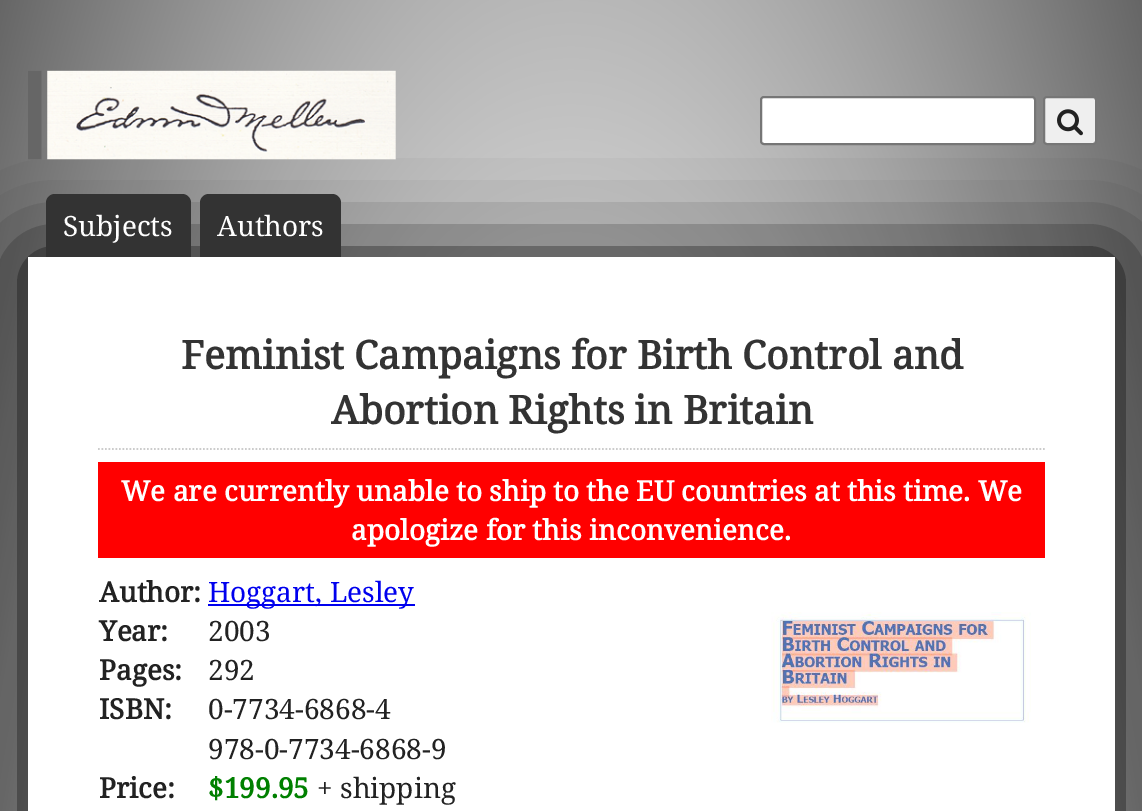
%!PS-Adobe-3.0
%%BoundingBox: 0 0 1142 811
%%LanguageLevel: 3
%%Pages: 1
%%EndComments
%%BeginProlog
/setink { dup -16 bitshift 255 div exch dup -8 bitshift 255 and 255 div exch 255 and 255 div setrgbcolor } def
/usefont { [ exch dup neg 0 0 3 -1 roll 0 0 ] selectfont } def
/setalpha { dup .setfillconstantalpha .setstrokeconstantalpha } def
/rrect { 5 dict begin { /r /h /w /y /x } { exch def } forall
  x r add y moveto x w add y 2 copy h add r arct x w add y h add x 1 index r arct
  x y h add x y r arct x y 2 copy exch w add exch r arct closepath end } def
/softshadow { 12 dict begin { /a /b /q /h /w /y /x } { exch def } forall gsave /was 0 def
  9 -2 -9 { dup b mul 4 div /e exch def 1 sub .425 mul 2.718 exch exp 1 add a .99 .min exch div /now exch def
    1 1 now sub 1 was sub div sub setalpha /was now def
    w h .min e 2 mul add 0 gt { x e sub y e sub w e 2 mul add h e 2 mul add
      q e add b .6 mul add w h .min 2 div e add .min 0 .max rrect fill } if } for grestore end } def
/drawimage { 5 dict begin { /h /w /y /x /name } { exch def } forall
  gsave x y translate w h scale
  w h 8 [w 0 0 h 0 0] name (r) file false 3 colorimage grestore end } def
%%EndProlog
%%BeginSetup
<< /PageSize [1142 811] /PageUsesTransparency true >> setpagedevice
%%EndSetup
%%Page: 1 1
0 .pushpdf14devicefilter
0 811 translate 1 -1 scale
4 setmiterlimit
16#FFFFFF setink
0 0 1142 811 rectfill
gsave 0 0 moveto 1142 0 lineto 1142 811 lineto 0 811 lineto closepath clip newpath 571 2293 translate 808 3243 scale
<< /ShadingType 3 /ColorSpace /DeviceRGB /Coords [0 0 0 0 0 1] /Extend [true true] /Function << /FunctionType 3 /Domain [0 1] /Functions [<< /FunctionType 2 /Domain [0 1] /C0 [0.894 0.961 0.988] /C1 [0.929 0.929 0.929] /N 1 >> << /FunctionType 2 /Domain [0 1] /C0 [0.929 0.929 0.929] /C1 [0.4 0.4 0.4] /N 1 >>] /Bounds [0.52] /Encode [0 1 0 1] >> >> shfill grestore
16#000000 setink
28 257 1087 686 0 44 1 softshadow
(img1.raw) 28 70 368 90 drawimage
16#FFFFFF setink
761 97 274 47 3 rrect gsave fill grestore
16#767676 setink
2 setlinewidth
stroke
16#EFEFEF setink
1044 97 52 47 3 rrect gsave fill grestore
16#767676 setink
stroke
(img2.raw) 1057 109 26 27 drawimage
16#333333 setink
55 194 moveto 182 194 lineto 187 194 191 198 191 203 curveto 191 257 lineto 46 257 lineto 46 203 lineto 46 198 50 194 55 194 curveto closepath fill
/NotoSerif-Regular 28 usefont
16#FFFFFF setink
63 236 moveto (Subjects) show
16#333333 setink
209 194 moveto 332 194 lineto 337 194 341 198 341 203 curveto 341 257 lineto 200 257 lineto 200 203 lineto 200 198 204 194 209 194 curveto closepath fill
16#FFFFFF setink
217 236 moveto (Authors) show
28 257 1087 554 rectfill
16#CCCCCC setink
1.8 setlinewidth
[1.75 1.75] 0 setdash
98 449 moveto 1045 449 lineto stroke
/NotoSerif-Bold 39.25 usefont
16#333333 setink
181 369 moveto (Feminist Campaigns for Birth Control and) show
331 424 moveto (Abortion Rights in Britain) show
16#FF0000 setink
98 462 947 96 rectfill
/NotoSerif-Bold 28 usefont
16#FFFFFF setink
121 501 moveto (We are currently unable to ship to the EU countries at this time. We) show
351 540 moveto (apologize for this inconvenience.) show
16#222222 setink
99 602 moveto (Author:) show
16#0000EE setink
208 604 207 2 rectfill
/NotoSerif-Regular 28 usefont
208 602 moveto (Hoggart, Lesley) show
/NotoSerif-Bold 28 usefont
16#222222 setink
99 641 moveto (Year:) show
/NotoSerif-Regular 28 usefont
208 641 moveto (2003) show
/NotoSerif-Bold 28 usefont
99 680 moveto (Pages:) show
/NotoSerif-Regular 28 usefont
208 680 moveto (292) show
/NotoSerif-Bold 28 usefont
99 719 moveto (ISBN:) show
/NotoSerif-Regular 28 usefont
208 719 moveto (0-7734-6868-4) show
208 759 moveto (978-0-7734-6868-9) show
/NotoSerif-Bold 28 usefont
99 798 moveto (Price:) show
16#008000 setink
208 798 moveto ($199.95) show
/NotoSerif-Regular 28 usefont
16#222222 setink
317 798 moveto (+ shipping) show
(img3.raw) 771 612 260 111 drawimage
.poppdf14devicefilter showpage
%%EOF
